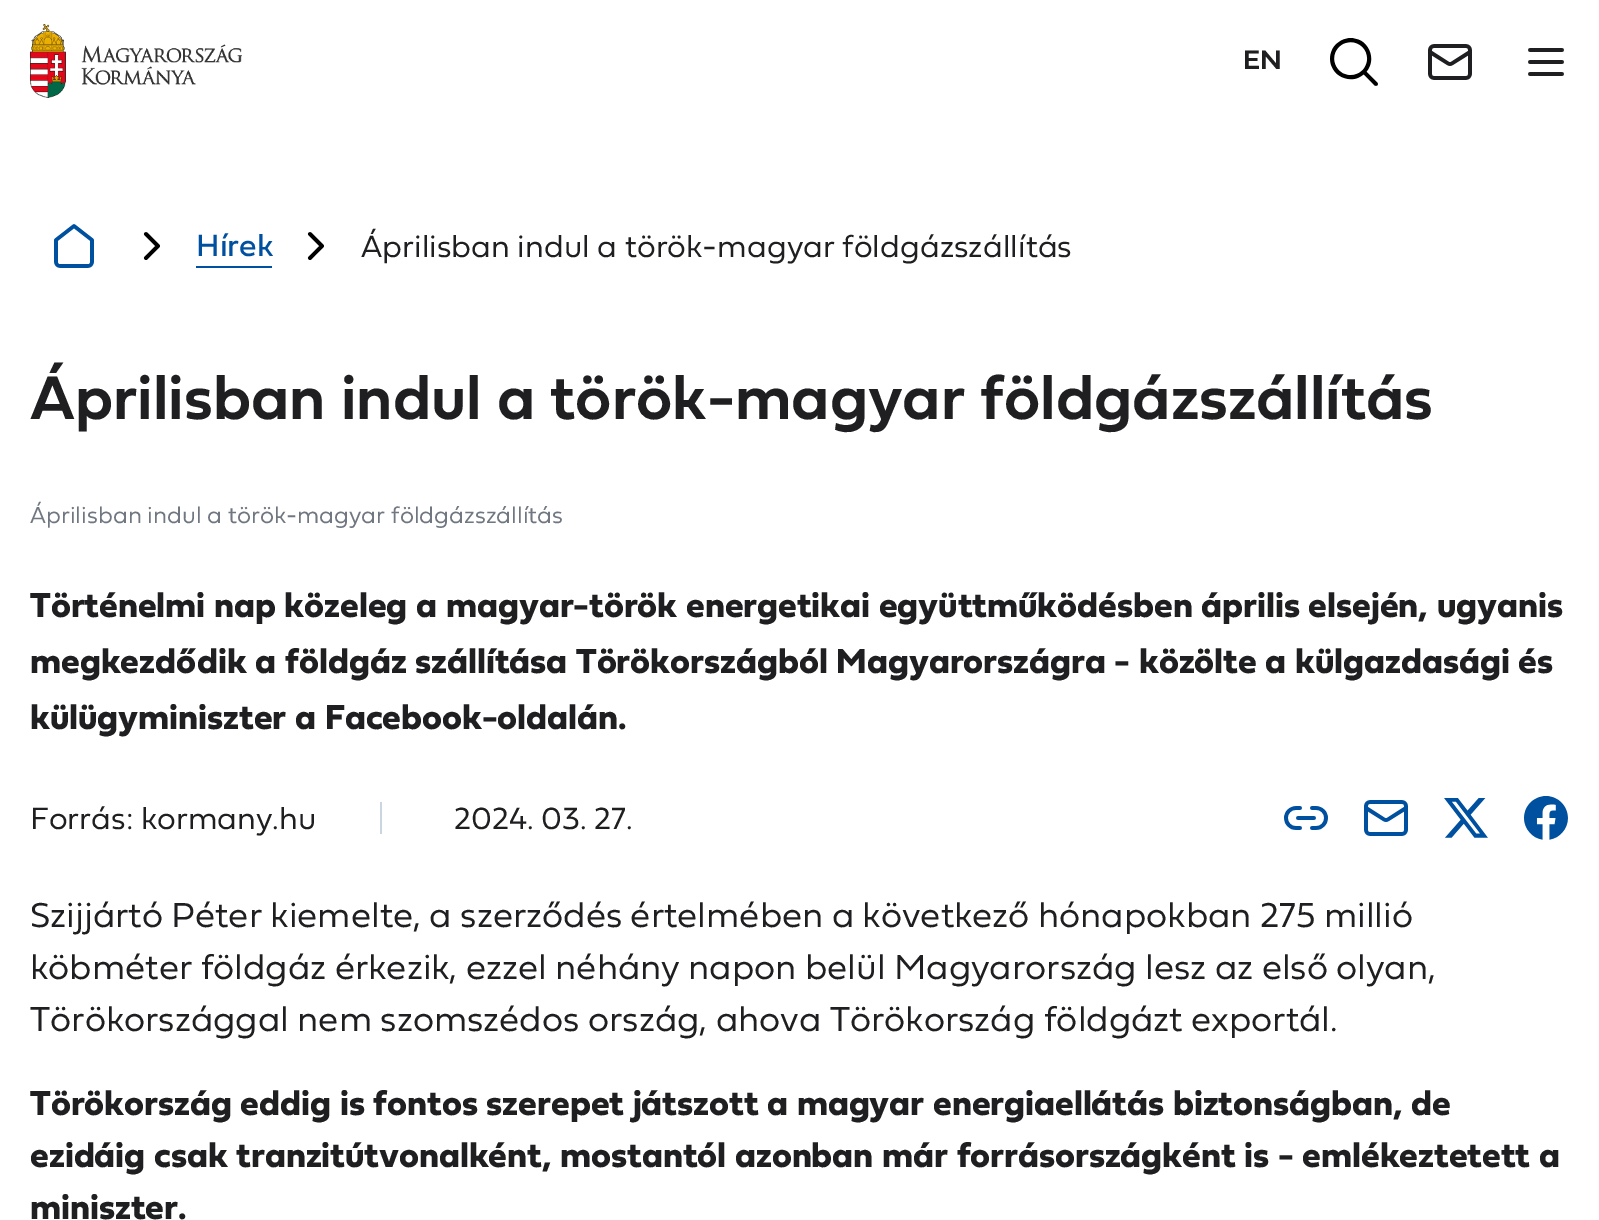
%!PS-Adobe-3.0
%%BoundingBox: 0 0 1599 1220
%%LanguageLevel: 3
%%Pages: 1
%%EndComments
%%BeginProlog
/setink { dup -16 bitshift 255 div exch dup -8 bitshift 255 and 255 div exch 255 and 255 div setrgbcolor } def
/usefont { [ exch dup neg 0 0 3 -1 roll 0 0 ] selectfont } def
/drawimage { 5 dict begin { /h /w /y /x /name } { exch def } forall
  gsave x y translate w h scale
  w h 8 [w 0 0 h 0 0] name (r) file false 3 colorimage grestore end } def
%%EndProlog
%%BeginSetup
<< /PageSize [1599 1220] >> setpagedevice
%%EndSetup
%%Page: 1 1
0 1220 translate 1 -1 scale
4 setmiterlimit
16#FFFFFF setink
0 0 1599 1220 rectfill
(img1.raw) 30 24 212 74 drawimage
/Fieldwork-SemiBold 28 usefont
16#1F1E21 setink
1243 69 moveto (EN) show
(img2.raw) 1330 38 48 48 drawimage
(img3.raw) 1428 44 44 36 drawimage
(img4.raw) 1528 48 36 28 drawimage
(img5.raw) 54 224 40 44 drawimage
(img6.raw) 143 232 17 28 drawimage
/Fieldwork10-Regular 32 usefont
16#0050A0 setink
196 256 moveto (Hírek) show
196 266 76 2 rectfill
(img6.raw) 307 232 17 28 drawimage
/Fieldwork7-Light 32 usefont
16#1F1E21 setink
361 257 moveto (Áprilisban indul a török-magyar földgázszállítás) show
/Fieldwork-SemiBold 64 usefont
30 419 moveto (Áprilisban indul a török-magyar földgázszállítás) show
/Fieldwork7-Light 24 usefont
16#707781 setink
30 523 moveto (Áprilisban indul a török-magyar földgázszállítás) show
/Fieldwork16-Bold 36 usefont
16#1F1E21 setink
[
    [(Történelmi nap közeleg a magyar-török energetikai együttműködésben április elsején, ugyanis) 30 617]
    [(megkezdődik a földgáz szállítása Törökországból Magyarországra - közölte a külgazdasági és) 30 673]
    [(külügyminiszter a Facebook-oldalán.) 30 729]
] { aload pop moveto show } forall
/Fieldwork7-Light 32 usefont
30 829 moveto (Forrás: kormany.hu) show
16#CBD5E1 setink
380 802 2 32 rectfill
16#1F1E21 setink
454 829 moveto (2024. 03. 27.) show
(img7.raw) 1284 806 44 24 drawimage
(img8.raw) 1364 800 44 36 drawimage
(img9.raw) 1444 798 44 40 drawimage
(img10.raw) 1524 796 44 44 drawimage
/Fieldwork7-Light 36 usefont
[
    [(Szijjártó Péter kiemelte, a szerződés értelmében a következő hónapokban 275 millió) 30 927]
    [(köbméter földgáz érkezik, ezzel néhány napon belül Magyarország lesz az első olyan,) 30 979]
    [(Törökországgal nem szomszédos ország, ahova Törökország földgázt exportál.) 30 1031]
] { aload pop moveto show } forall
/Fieldwork16-Bold 36 usefont
[
    [(Törökország eddig is fontos szerepet játszott a magyar energiaellátás biztonságban, de) 30 1115]
    [(ezidáig csak tranzitútvonalként, mostantól azonban már forrásországként is - emlékeztetett a) 30 1167]
    [(miniszter.) 30 1219]
] { aload pop moveto show } forall
showpage
%%EOF
